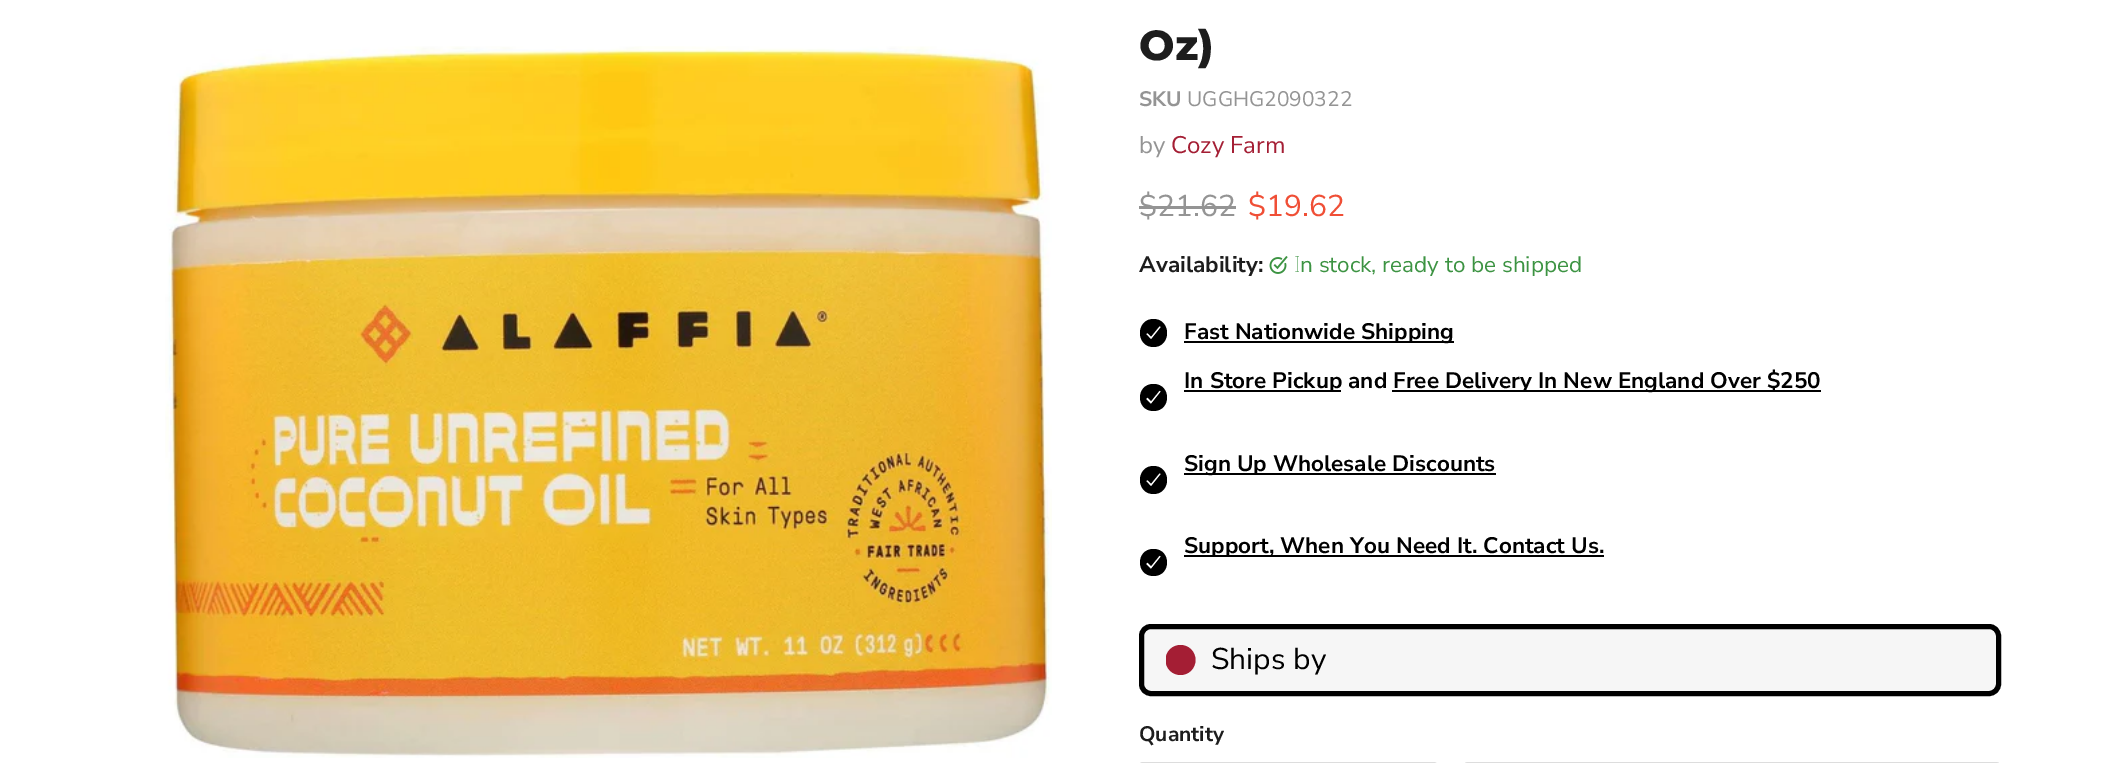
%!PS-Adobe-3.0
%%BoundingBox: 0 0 2126 763
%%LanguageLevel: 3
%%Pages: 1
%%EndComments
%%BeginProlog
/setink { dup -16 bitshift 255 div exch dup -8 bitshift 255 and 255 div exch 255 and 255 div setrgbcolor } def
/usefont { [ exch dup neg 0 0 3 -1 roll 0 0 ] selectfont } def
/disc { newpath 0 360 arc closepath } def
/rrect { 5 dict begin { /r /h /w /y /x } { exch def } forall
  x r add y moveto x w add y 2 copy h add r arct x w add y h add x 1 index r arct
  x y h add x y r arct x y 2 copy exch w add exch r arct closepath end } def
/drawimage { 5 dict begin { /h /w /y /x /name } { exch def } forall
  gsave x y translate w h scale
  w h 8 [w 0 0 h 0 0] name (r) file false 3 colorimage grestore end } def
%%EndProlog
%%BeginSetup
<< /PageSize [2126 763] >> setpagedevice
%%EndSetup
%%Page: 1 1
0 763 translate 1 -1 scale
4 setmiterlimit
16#FFFFFF setink
0 0 2126 763 rectfill
(img1.raw) 165 46 887 712 drawimage
/Montserrat-ExtraBold 42 usefont
16#1D1D1D setink
1139 60 moveto (Oz\)) show
/NunitoSans-Bold 21 usefont
16#949494 setink
1139 106 moveto (SKU) show
/NunitoSans-Regular 21 usefont
1187 106 moveto (UGGHG2090322) show
/NunitoSans-Regular 24 usefont
1139 153 moveto (by) show
16#A41E34 setink
1171 153 moveto (Cozy Farm) show
/NunitoSans-Regular 30 usefont
16#949494 setink
1139 216 moveto ($21.62) show
1139 206 97 3 rectfill
16#F04F36 setink
1248 216 moveto ($19.62) show
/NunitoSans-Bold 22.5 usefont
16#1D1D1D setink
1139 272 moveto (Availability:) show
(img2.raw) 1269 256 19 18 drawimage
/NotoSans-Thin 22.5 usefont
16#3C9342 setink
1294 272 moveto (I) show
/NunitoSans-Regular 22.5 usefont
1300 272 moveto (n stock, ready to be shipped) show
16#000000 setink
1153.5 319 moveto 1135.5 319 1135.5 347 1153.5 347 curveto 1171.5 347 1171.5 319 1153.5 319 curveto closepath 1151 339.5 moveto 1161 327 lineto 1159.5 326 lineto 1151 336.5 lineto 1147.5 333 lineto 1146 334 lineto closepath eofill
1184 341 270 2 rectfill
/NunitoSans-Bold 22.5 usefont
1184 339 moveto (Fast Nationwide Shipping) show
1184 390 157 2 rectfill
1184 388 moveto (In Store Pickup and) show
1392 390 429 2 rectfill
1393 388 moveto (Free Delivery In New England Over $250) show
1153.5 384 moveto 1135.5 384 1135.5 411 1153.5 411 curveto 1171.5 411 1171.5 384 1153.5 384 curveto closepath 1151 404 moveto 1161 391.5 lineto 1159.5 390.5 lineto 1151 401 lineto 1147.5 397.5 lineto 1146 399 lineto closepath eofill
1153.5 466 moveto 1135.5 466 1135.5 494 1153.5 494 curveto 1171.5 494 1171.5 466 1153.5 466 curveto closepath 1151 486.5 moveto 1161 474 lineto 1159.5 473 lineto 1151 483.5 lineto 1147.5 480 lineto 1146 481 lineto closepath eofill
1184 473 312 2 rectfill
1184 471 moveto (Sign Up Wholesale Discounts) show
1153.5 549 moveto 1135.5 549 1135.5 576 1153.5 576 curveto 1171.5 576 1171.5 549 1153.5 549 curveto closepath 1151 569 moveto 1161 556.5 lineto 1159.5 555.5 lineto 1151 566 lineto 1147.5 562.5 lineto 1146 564 lineto closepath eofill
1184 555 420 2 rectfill
1184 553 moveto (Support, When You Need It. Contact Us.) show
16#F6F6F6 setink
1141.5 626.5 857 67 9.5 rrect gsave fill grestore
16#000000 setink
5 setlinewidth
stroke
gsave
1166 645 30 30 rectclip
16#A41E34 setink
1180.5 660 15 disc fill
grestore
/NunitoSans-Regular 30 usefont
1211 669 moveto (Ships by) show
/NunitoSans-Bold 21 usefont
16#1D1D1D setink
1139 741 moveto (Quantity) show
16#DDDDDD setink
1143 762 moveto 1215 762 lineto 1215 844 lineto 1143 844 lineto 1141 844 1138 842 1138 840 curveto 1138 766 lineto 1138 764 1141 762 1143 762 curveto closepath 1143 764 moveto 1215 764 lineto 1215 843 lineto 1143 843 lineto 1141 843 1140 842 1140 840 curveto 1140 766 lineto 1140 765 1141 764 1143 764 curveto closepath eofill
2 setlinewidth
1216 763 145 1 rectstroke
1362 762 moveto 1434 762 lineto 1436 762 1438 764 1438 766 curveto 1438 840 lineto 1438 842 1436 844 1434 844 curveto 1362 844 lineto closepath 1362 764 moveto 1434 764 lineto 1436 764 1437 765 1437 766 curveto 1437 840 lineto 1437 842 1436 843 1434 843 curveto 1362 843 lineto closepath eofill
1464 763 536 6 4 rrect stroke
showpage
%%EOF
